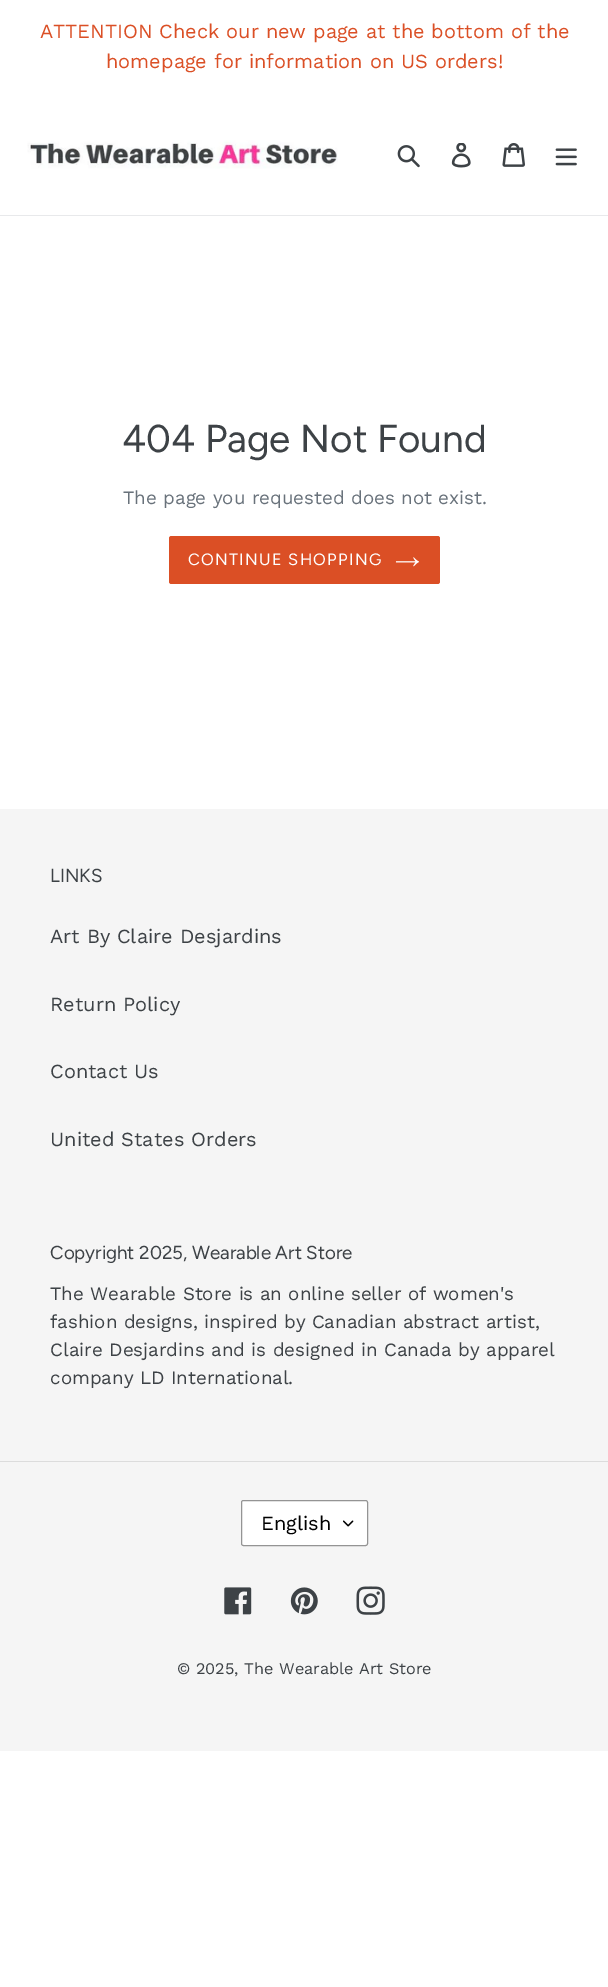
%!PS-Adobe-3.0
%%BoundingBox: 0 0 608 1987
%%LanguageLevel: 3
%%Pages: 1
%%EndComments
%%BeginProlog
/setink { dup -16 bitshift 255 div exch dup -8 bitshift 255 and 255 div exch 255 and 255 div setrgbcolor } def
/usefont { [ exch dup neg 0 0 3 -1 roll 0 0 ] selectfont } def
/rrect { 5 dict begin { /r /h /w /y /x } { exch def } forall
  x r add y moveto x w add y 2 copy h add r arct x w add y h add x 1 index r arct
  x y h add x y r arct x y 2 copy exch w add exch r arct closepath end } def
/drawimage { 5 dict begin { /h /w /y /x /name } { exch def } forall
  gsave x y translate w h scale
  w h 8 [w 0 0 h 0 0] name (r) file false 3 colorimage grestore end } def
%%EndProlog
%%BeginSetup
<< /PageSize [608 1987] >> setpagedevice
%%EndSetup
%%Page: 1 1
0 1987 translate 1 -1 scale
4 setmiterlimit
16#FFFFFF setink
0 0 608 1987 rectfill
/WorkSans-Regular 20 usefont
16#DB4F25 setink
40 38 moveto (ATTENTION Check our new page at the bottom of the) show
106 68 moveto (homepage for information on US orders!) show
16#E8E9EB setink
0 215 608 1 rectfill
(img1.raw) 27 140 311 29 drawimage
(img2.raw) 397 145 23 23 drawimage
(img3.raw) 451 143 20 25 drawimage
(img4.raw) 502 143 23 24 drawimage
(img5.raw) 555 148 22 18 drawimage
/Figtree-Regular 38.75 usefont
16#3D4246 setink
122 452 moveto (404 Page Not Found) show
/WorkSans-Regular 18.75 usefont
16#69727B setink
123 504 moveto (The page you requested does not exist.) show
16#DB4F25 setink
169 536 271 48 2.5 rrect fill
/Figtree-Regular 16.4 usefont
16#FFFFFF setink
188 565 moveto 1.3 0 (CONTINUE SHOPPING) ashow
(img6.raw) 395 557 24 10 drawimage
16#F5F5F5 setink
0 809 608 942 rectfill
/Figtree-Regular 18.75 usefont
16#3D4246 setink
50 882 moveto (LINKS) show
/WorkSans-Regular 20 usefont
[
    [(Art By Claire Desjardins) 50 943]
    [(Return Policy) 50 1011]
    [(Contact Us) 50 1078]
    [(United States Orders) 50 1146]
] { aload pop moveto show } forall
/Figtree-Regular 18.75 usefont
50 1259 moveto (Copyright 2025, Wearable Art Store) show
/WorkSans-Regular 18.75 usefont
[
    [(The Wearable Store is an online seller of women's) 50 1300]
    [(fashion designs, inspired by Canadian abstract artist,) 50 1328]
    [(Claire Desjardins and is designed in Canada by apparel) 50 1356]
    [(company LD International.) 50 1384]
] { aload pop moveto show } forall
16#DCDCDC setink
0 1461 608 1 rectfill
16#FFFFFF setink
241 1500 127 46 2.5 rrect fill
(img7.raw) 343 1520 11 7 drawimage
16#949494 setink
241.5 1500.5 126 45 2 rrect stroke
/WorkSans-Regular 20 usefont
16#000000 setink
261 1530 moveto (English) show
(img8.raw) 224 1587 28 28 drawimage
(img9.raw) 290 1587 28 28 drawimage
(img10.raw) 356 1586 29 29 drawimage
/WorkSans-Regular 16.25 usefont
16#3D4246 setink
177 1674 moveto (© 2025, The Wearable Art Store) show
showpage
%%EOF
